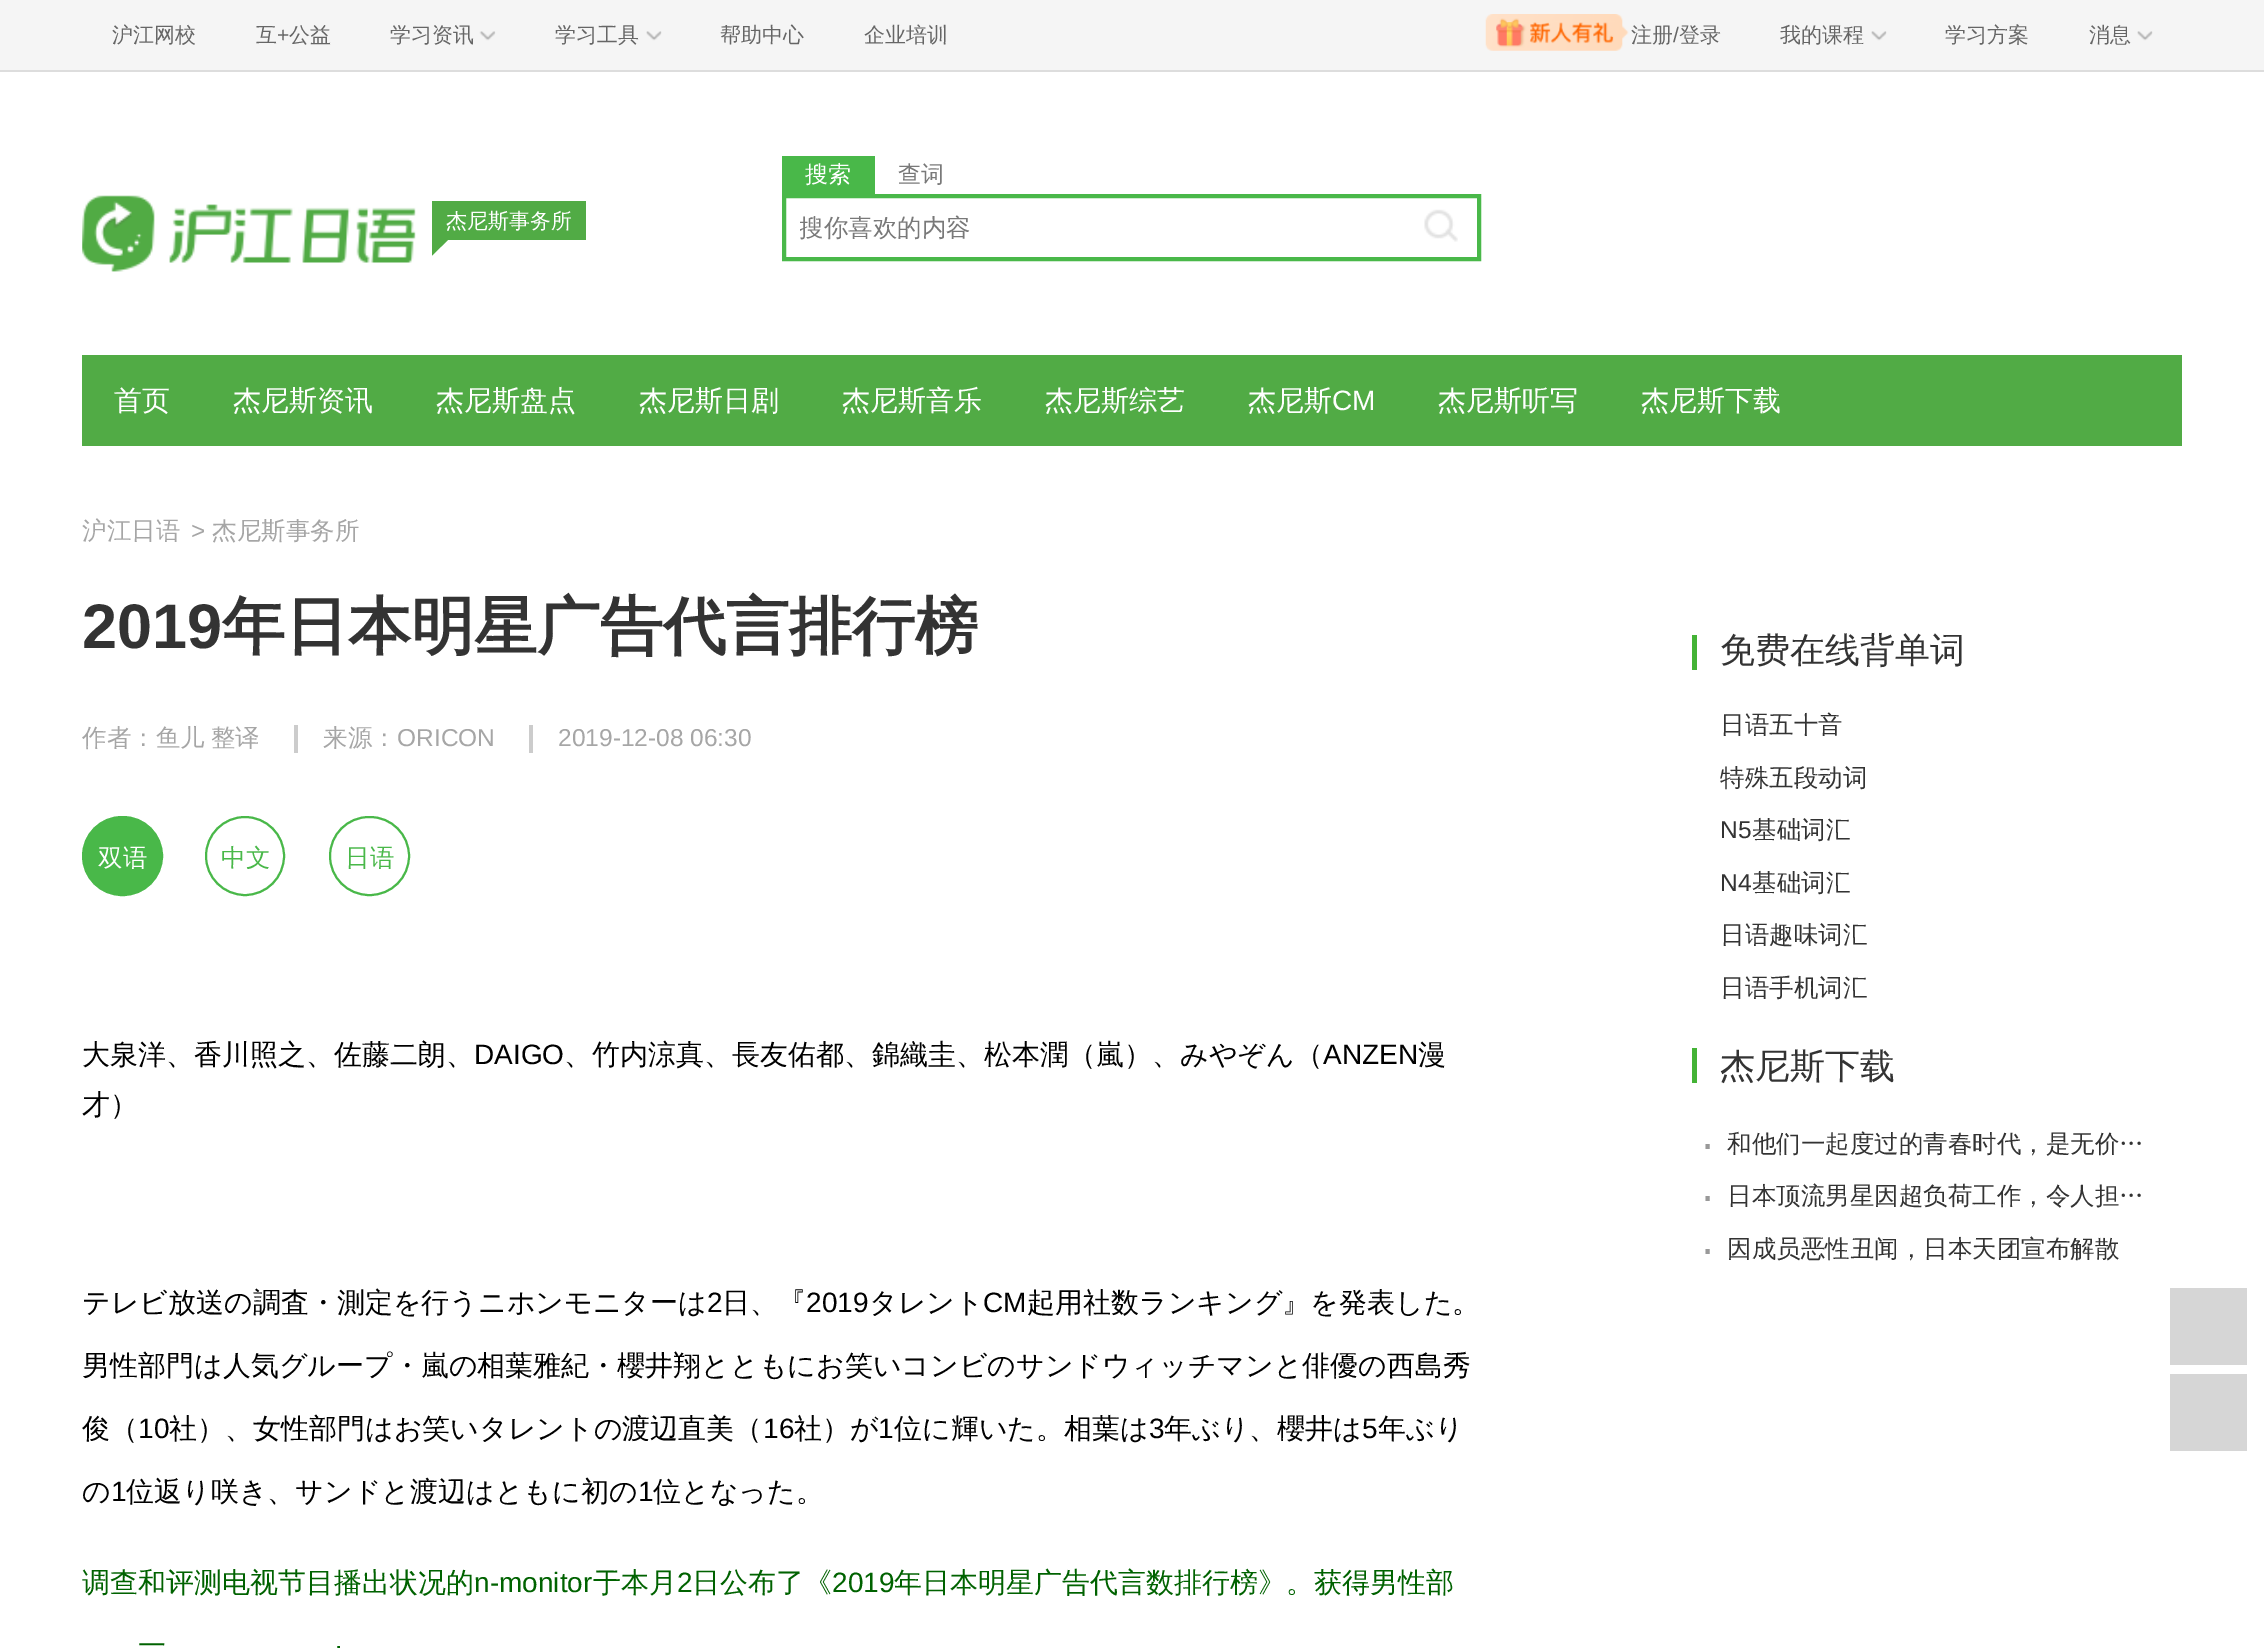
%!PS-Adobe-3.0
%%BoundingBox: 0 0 2264 1648
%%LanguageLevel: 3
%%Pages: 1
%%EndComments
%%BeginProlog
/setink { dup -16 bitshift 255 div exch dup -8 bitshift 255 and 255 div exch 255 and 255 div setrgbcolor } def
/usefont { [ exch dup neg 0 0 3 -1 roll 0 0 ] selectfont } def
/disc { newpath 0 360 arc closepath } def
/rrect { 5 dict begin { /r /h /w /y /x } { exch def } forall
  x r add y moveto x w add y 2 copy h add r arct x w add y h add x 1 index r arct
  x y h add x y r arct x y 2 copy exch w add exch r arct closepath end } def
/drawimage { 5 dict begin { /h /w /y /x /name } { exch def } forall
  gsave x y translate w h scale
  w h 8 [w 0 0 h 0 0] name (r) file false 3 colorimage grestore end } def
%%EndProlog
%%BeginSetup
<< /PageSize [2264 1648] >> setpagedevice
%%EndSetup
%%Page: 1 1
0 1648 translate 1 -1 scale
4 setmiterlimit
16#FFFFFF setink
0 0 2264 1648 rectfill
16#F5F5F5 setink
0 0 2264 70 rectfill
16#DDDDDD setink
0 70 2264 2 rectfill
/WenQuanYiZenHei-Medium 21 usefont
16#666666 setink
112 42 moveto (沪江网校) show
256 42 moveto (互) show
/LiberationSans-Regular 21 usefont
277 42 moveto (+) show
/WenQuanYiZenHei-Medium 21 usefont
289 42 moveto (公益) show
390 42 moveto (学习资讯) show
(img1.raw) 479 31 17 10 drawimage
555 42 moveto (学习工具) show
(img2.raw) 646 31 16 10 drawimage
720 42 moveto (帮助中心) show
864 42 moveto (企业培训) show
(img3.raw) 1485 14 144 37 drawimage
1631 42 moveto (注册) show
/LiberationSans-Regular 21 usefont
1673 42 moveto (/) show
/WenQuanYiZenHei-Medium 21 usefont
1679 42 moveto (登录) show
1780 42 moveto (我的课程) show
(img2.raw) 1871 31 16 10 drawimage
1945 42 moveto (学习方案) show
2089 42 moveto (消息) show
(img2.raw) 2137 31 16 10 drawimage
(img4.raw) 82 195 334 77 drawimage
16#51AB45 setink
432 201 154 39 rectfill
16#FFFFFF setink
446 228 moveto (杰尼斯事务所) show
16#51AB45 setink
432 238 moveto 450 238 lineto 432 255.5 lineto closepath fill
16#49B849 setink
782 156 93 38 rectfill
/WenQuanYiZenHei-Medium 23 usefont
16#FFFFFF setink
805 182 moveto (搜索) show
16#797979 setink
898 182 moveto (查词) show
16#49B849 setink
4 setlinewidth
784 196 695 63 rectstroke
gsave
800 214 607 31 rectclip
/WenQuanYiZenHei-Medium 24.5 usefont
16#797979 setink
799 236 moveto (搜你喜欢的内容) show
grestore
(img5.raw) 1424 209 34 33 drawimage
16#51AB45 setink
82 355 2100 91 rectfill
/WenQuanYiZenHei-Medium 28 usefont
16#FFFFFF setink
[
    [(首页) 114 410]
    [(杰尼斯资讯) 233 410]
    [(杰尼斯盘点) 436 410]
    [(杰尼斯日剧) 639 410]
    [(杰尼斯音乐) 842 410]
    [(杰尼斯综艺) 1045 410]
    [(杰尼斯) 1248 410]
] { aload pop moveto show } forall
/LiberationSans-Regular 28 usefont
1332 410 moveto (CM) show
/WenQuanYiZenHei-Medium 28 usefont
1438 410 moveto (杰尼斯听写) show
1641 410 moveto (杰尼斯下载) show
/WenQuanYiZenHei-Medium 24.5 usefont
16#A6A6A6 setink
82 539 moveto (沪江日语) show
/LiberationSans-Regular 24.5 usefont
191 539 moveto (>) show
/WenQuanYiZenHei-Medium 24.5 usefont
212 539 moveto (杰尼斯事务所) show
/LiberationSans-Bold 63 usefont
16#333333 setink
82 648 moveto (2019) show
/WenQuanYiZenHei-Bold 63 usefont
222 648 moveto (年日本明星广告代言排行榜) show
/WenQuanYiZenHei-Medium 24.5 usefont
16#A6A6A6 setink
82 746 moveto -1 0 32 (作者：鱼儿 整译) widthshow
16#CCCCCC setink
294 725 4 28 rectfill
16#A6A6A6 setink
323 746 moveto (来源：) show
/LiberationSans-Regular 24.5 usefont
397 746 moveto (ORICON) show
16#CCCCCC setink
529 725 4 28 rectfill
16#A6A6A6 setink
558 746 moveto (2019-12-08 06:30) show
16#49B849 setink
83 817 79 78 39 rrect gsave fill grestore
2 setlinewidth
stroke
/WenQuanYiZenHei-Medium 24.5 usefont
16#FFFFFF setink
98 866 moveto (双语) show
16#49B849 setink
245 856 39 disc stroke
221 866 moveto (中文) show
330 817 79 78 39 rrect stroke
345 866 moveto (日语) show
/WenQuanYiZenHei-Medium 28 usefont
16#000000 setink
82 1064 moveto (大泉洋、香川照之、佐藤二朗、) show
/LiberationSans-Regular 28 usefont
474 1064 moveto (DAIGO) show
/WenQuanYiZenHei-Medium 28 usefont
564 1064 moveto (、竹内涼真、長友佑都、錦織圭、松本潤（嵐）、みやぞん（) show
/LiberationSans-Regular 28 usefont
1323 1064 moveto (ANZEN) show
/WenQuanYiZenHei-Medium 28 usefont
[
    [(漫) 1418 1064]
    [(才）) 82 1114]
    [(テレビ放送の調査・測定を行うニホンモニターは) 82 1312]
] { aload pop moveto show } forall
/LiberationSans-Regular 28 usefont
707 1312 moveto (2) show
/WenQuanYiZenHei-Medium 28 usefont
722 1312 moveto (日、『) show
/LiberationSans-Regular 28 usefont
806 1312 moveto (2019) show
/WenQuanYiZenHei-Medium 28 usefont
869 1312 moveto (タレント) show
/LiberationSans-Regular 28 usefont
983 1312 moveto (CM) show
/WenQuanYiZenHei-Medium 28 usefont
[
    [(起用社数ランキング』を発表した。) 1027 1312]
    [(男性部門は人気グループ・嵐の相葉雅紀・櫻井翔とともにお笑いコンビのサンドウィッチマンと俳優の西島秀) 82 1375]
    [(俊（) 82 1438]
] { aload pop moveto show } forall
/LiberationSans-Regular 28 usefont
138 1438 moveto (10) show
/WenQuanYiZenHei-Medium 28 usefont
169 1438 moveto (社）、女性部門はお笑いタレントの渡辺直美（) show
/LiberationSans-Regular 28 usefont
763 1438 moveto (16) show
/WenQuanYiZenHei-Medium 28 usefont
794 1438 moveto (社）が) show
/LiberationSans-Regular 28 usefont
878 1438 moveto (1) show
/WenQuanYiZenHei-Medium 28 usefont
894 1438 moveto (位に輝いた。相葉は) show
/LiberationSans-Regular 28 usefont
1149 1438 moveto (3) show
/WenQuanYiZenHei-Medium 28 usefont
1164 1438 moveto (年ぶり、櫻井は) show
/LiberationSans-Regular 28 usefont
1362 1438 moveto (5) show
/WenQuanYiZenHei-Medium 28 usefont
1378 1438 moveto (年ぶり) show
82 1501 moveto (の) show
/LiberationSans-Regular 28 usefont
111 1501 moveto (1) show
/WenQuanYiZenHei-Medium 28 usefont
126 1501 moveto (位返り咲き、サンドと渡辺はともに初の) show
/LiberationSans-Regular 28 usefont
638 1501 moveto (1) show
/WenQuanYiZenHei-Medium 28 usefont
653 1501 moveto (位となった。) show
16#006200 setink
82 1592 moveto (调查和评测电视节目播出状况的) show
/LiberationSans-Regular 28 usefont
474 1592 moveto (n-monitor) show
/WenQuanYiZenHei-Medium 28 usefont
593 1592 moveto (于本月) show
/LiberationSans-Regular 28 usefont
677 1592 moveto (2) show
/WenQuanYiZenHei-Medium 28 usefont
692 1592 moveto (日公布了《) show
/LiberationSans-Regular 28 usefont
832 1592 moveto (2019) show
/WenQuanYiZenHei-Medium 28 usefont
894 1592 moveto (年日本明星广告代言数排行榜》。获得男性部) show
138 1655 moveto (一) show
/LiberationSans-Regular 28 usefont
334 1655 moveto (·) show
16#44B336 setink
1692 635 5 35 rectfill
/WenQuanYiZenHei-Medium 35 usefont
16#333333 setink
1720 662 moveto (免费在线背单词) show
/WenQuanYiZenHei-Medium 24.5 usefont
1720 733 moveto (日语五十音) show
1720 786 moveto (特殊五段动词) show
/LiberationSans-Regular 24.5 usefont
1720 838 moveto (N5) show
/WenQuanYiZenHei-Medium 24.5 usefont
1752 838 moveto (基础词汇) show
/LiberationSans-Regular 24.5 usefont
1720 891 moveto (N4) show
/WenQuanYiZenHei-Medium 24.5 usefont
[
    [(基础词汇) 1752 891]
    [(日语趣味词汇) 1720 943]
    [(日语手机词汇) 1720 996]
] { aload pop moveto show } forall
16#44B336 setink
1692 1048 5 35 rectfill
/WenQuanYiZenHei-Medium 35 usefont
16#333333 setink
1720 1078 moveto (杰尼斯下载) show
/LiberationSans-Regular 46 usefont
16#999999 setink
1700 1159 moveto (·) show
/WenQuanYiZenHei-Medium 24.5 usefont
16#333333 setink
1727 1152 moveto (和他们一起度过的青春时代，是无价…) show
/LiberationSans-Regular 46 usefont
16#999999 setink
1700 1211 moveto (·) show
/WenQuanYiZenHei-Medium 24.5 usefont
16#333333 setink
1727 1204 moveto (日本顶流男星因超负荷工作，令人担…) show
/LiberationSans-Regular 46 usefont
16#999999 setink
1700 1264 moveto (·) show
/WenQuanYiZenHei-Medium 24.5 usefont
16#333333 setink
1727 1257 moveto (因成员恶性丑闻，日本天团宣布解散) show
16#D6D6D6 setink
2170 1288 77 77 rectfill
2170 1374 77 77 rectfill
showpage
%%EOF
